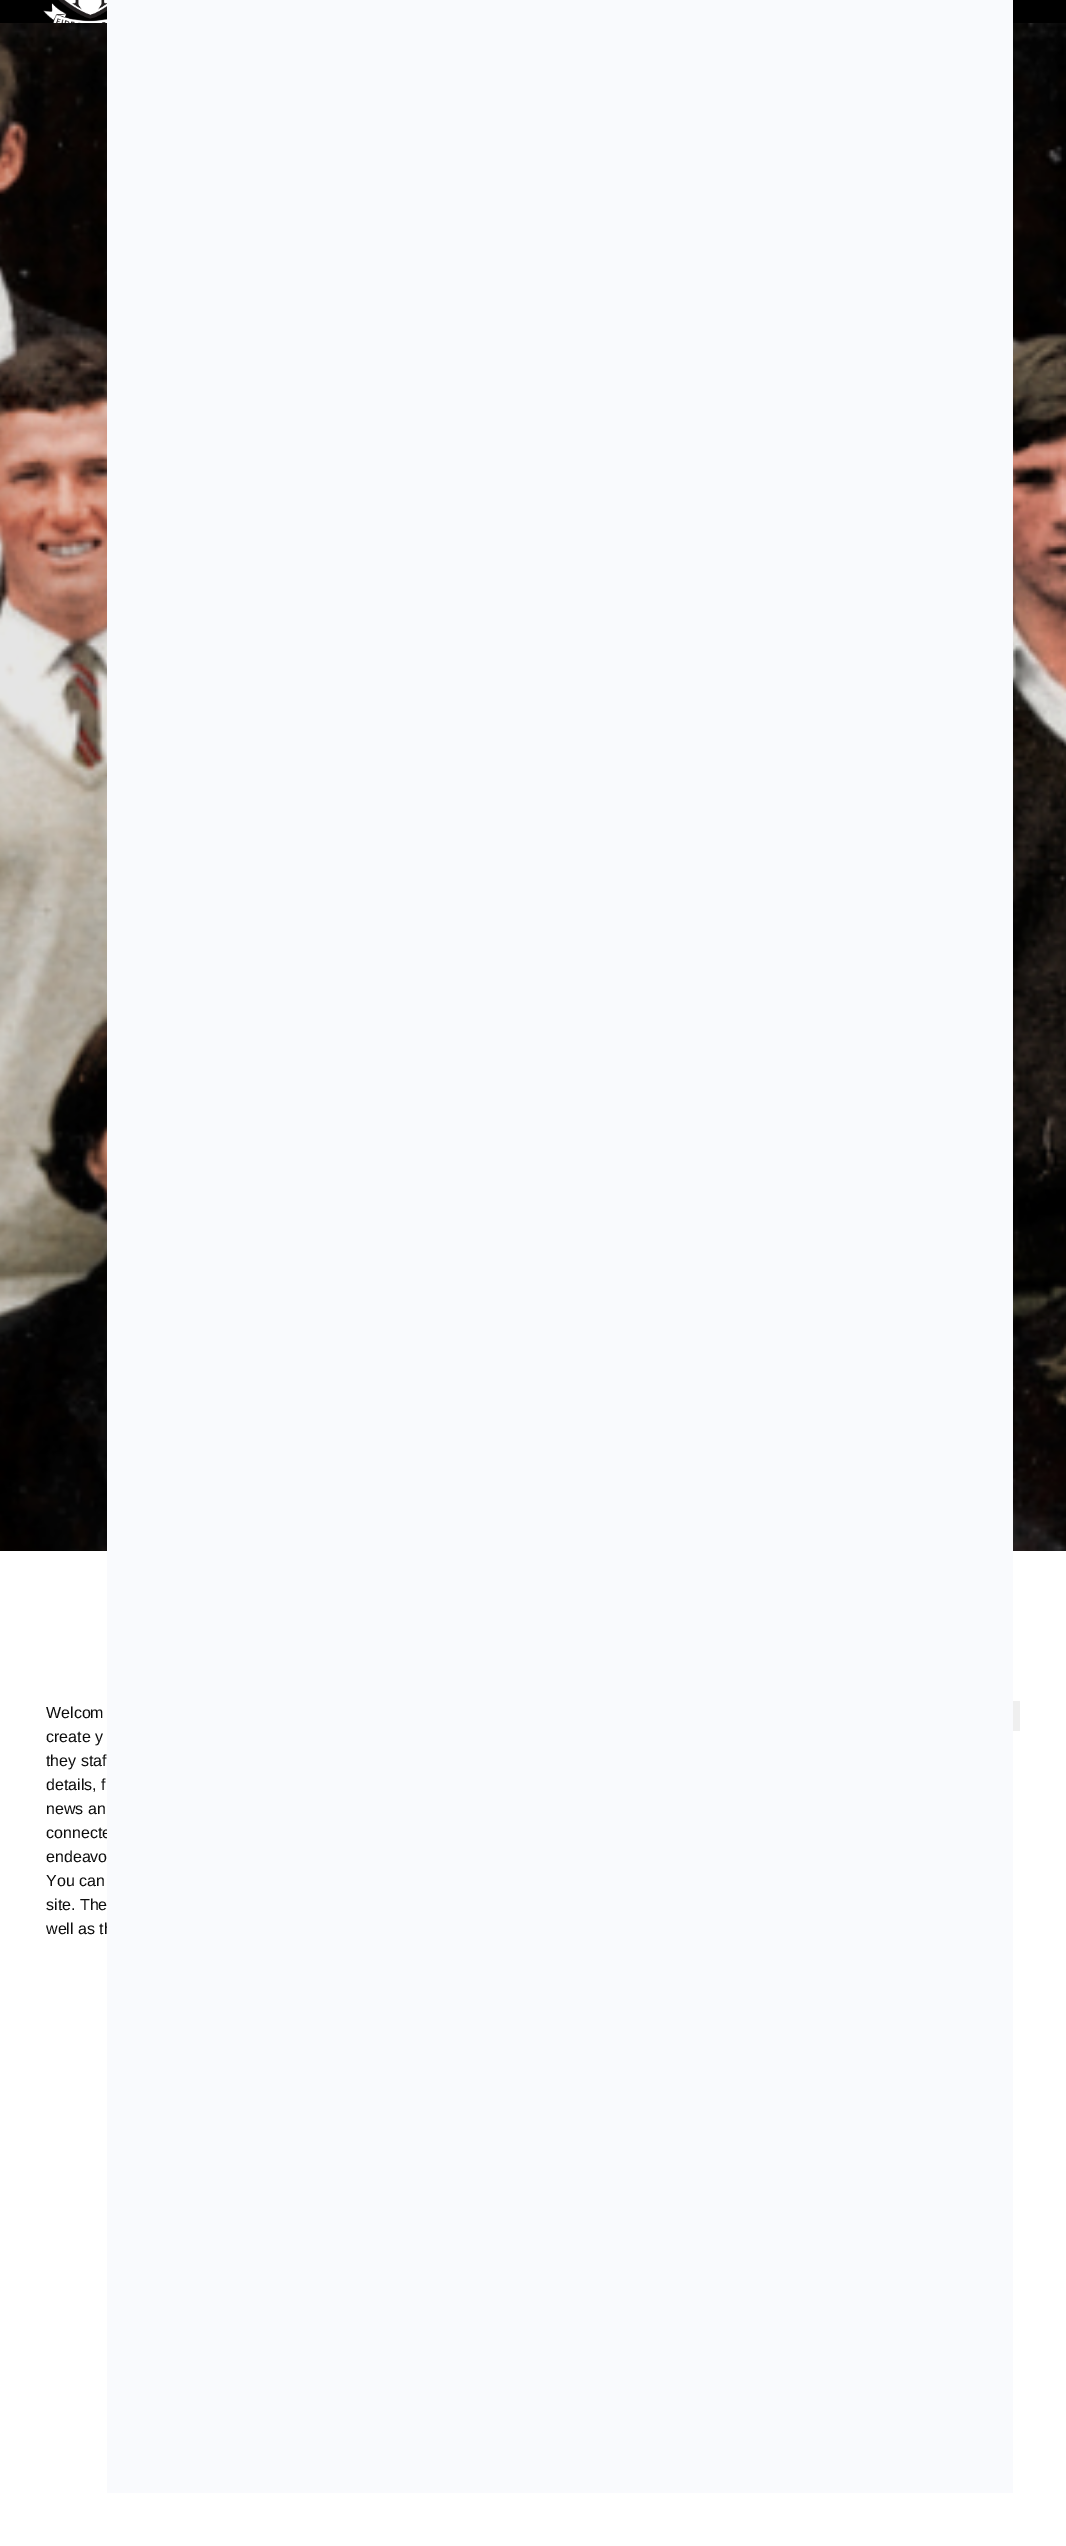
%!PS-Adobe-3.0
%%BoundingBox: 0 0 1066 2546
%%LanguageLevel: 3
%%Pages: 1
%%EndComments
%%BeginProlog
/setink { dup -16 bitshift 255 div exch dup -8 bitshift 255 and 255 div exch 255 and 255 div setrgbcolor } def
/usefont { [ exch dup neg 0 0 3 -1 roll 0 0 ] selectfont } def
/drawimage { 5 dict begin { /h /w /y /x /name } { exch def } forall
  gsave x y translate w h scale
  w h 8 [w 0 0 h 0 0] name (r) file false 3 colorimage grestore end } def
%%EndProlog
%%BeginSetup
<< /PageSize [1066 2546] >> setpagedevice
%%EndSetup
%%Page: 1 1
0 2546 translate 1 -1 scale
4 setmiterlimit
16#FFFFFF setink
0 0 1066 2546 rectfill
16#000000 setink
0 0 1066 23 rectfill
(img1.raw) 43 0 64 23 drawimage
(img2.raw) 0 23 1066 1528 drawimage
/LiberationSans-Regular 16 usefont
16#0D0D0D setink
46 1838 moveto (connecte) show
46 1934 moveto (well as th) show
16#F9FAFD setink
107 0 906 2493 rectfill
16#0D0D0D setink
[
    [(Welcom) 46 1718]
    [(create y) 46 1742]
    [(they staf) 46 1766]
    [(details, f) 46 1790]
    [(news an) 46 1814]
    [(endeavo) 46 1862]
    [(You can) 46 1886]
    [(site. The) 46 1910]
] { aload pop moveto show } forall
gsave 1013 1701 moveto 1017 1701 lineto 1017 1731 lineto 1013 1731 lineto closepath clip newpath
<< /ShadingType 2 /ColorSpace /DeviceRGB /Coords [217 1753 1017 1753] /Extend [true true] /Function << /FunctionType 3 /Domain [0 1] /Functions [<< /FunctionType 2 /Domain [0 1] /C0 [0.937 0.937 0.937] /C1 [0.937 0.937 0.937] /N 1 >> << /FunctionType 2 /Domain [0 1] /C0 [0.937 0.937 0.937] /C1 [0.875 0.875 0.875] /N 1 >> << /FunctionType 2 /Domain [0 1] /C0 [0.875 0.875 0.875] /C1 [0.937 0.937 0.937] /N 1 >> << /FunctionType 2 /Domain [0 1] /C0 [0.937 0.937 0.937] /C1 [0.937 0.937 0.937] /N 1 >>] /Bounds [0.08 0.18 0.33] /Encode [0 1 0 1 0 1 0 1] >> >> shfill grestore
gsave 1017 1701 moveto 1020 1701 lineto 1020 1731 lineto 1017 1731 lineto closepath clip newpath
<< /ShadingType 2 /ColorSpace /DeviceRGB /Coords [1017 1753 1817 1753] /Extend [true true] /Function << /FunctionType 3 /Domain [0 1] /Functions [<< /FunctionType 2 /Domain [0 1] /C0 [0.937 0.937 0.937] /C1 [0.937 0.937 0.937] /N 1 >> << /FunctionType 2 /Domain [0 1] /C0 [0.937 0.937 0.937] /C1 [0.875 0.875 0.875] /N 1 >> << /FunctionType 2 /Domain [0 1] /C0 [0.875 0.875 0.875] /C1 [0.937 0.937 0.937] /N 1 >> << /FunctionType 2 /Domain [0 1] /C0 [0.937 0.937 0.937] /C1 [0.937 0.937 0.937] /N 1 >>] /Bounds [0.08 0.18 0.33] /Encode [0 1 0 1 0 1 0 1] >> >> shfill grestore
showpage
%%EOF
